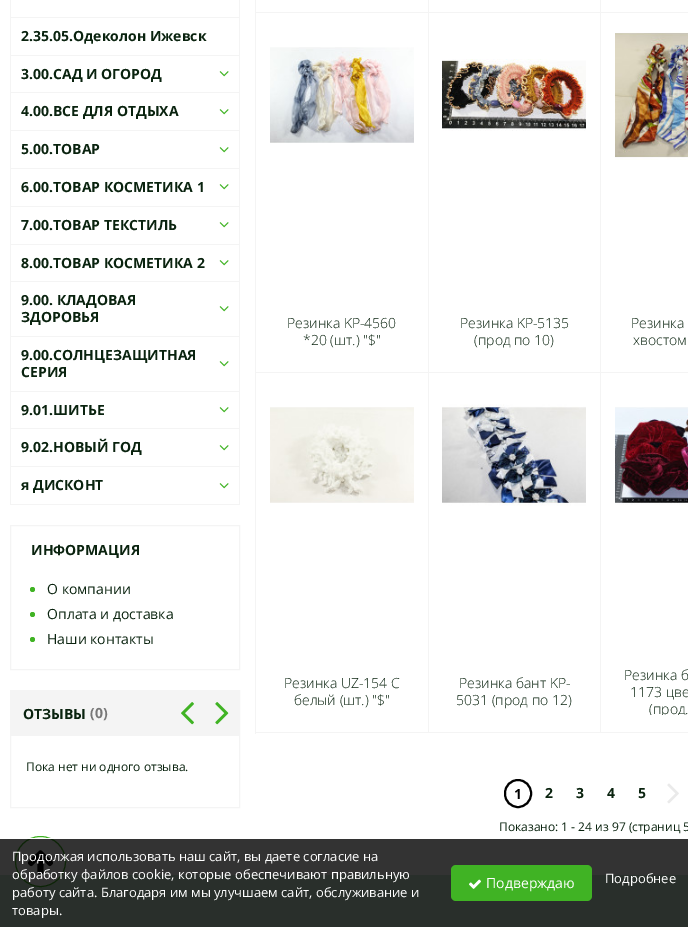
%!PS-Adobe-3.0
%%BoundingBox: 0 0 688 927
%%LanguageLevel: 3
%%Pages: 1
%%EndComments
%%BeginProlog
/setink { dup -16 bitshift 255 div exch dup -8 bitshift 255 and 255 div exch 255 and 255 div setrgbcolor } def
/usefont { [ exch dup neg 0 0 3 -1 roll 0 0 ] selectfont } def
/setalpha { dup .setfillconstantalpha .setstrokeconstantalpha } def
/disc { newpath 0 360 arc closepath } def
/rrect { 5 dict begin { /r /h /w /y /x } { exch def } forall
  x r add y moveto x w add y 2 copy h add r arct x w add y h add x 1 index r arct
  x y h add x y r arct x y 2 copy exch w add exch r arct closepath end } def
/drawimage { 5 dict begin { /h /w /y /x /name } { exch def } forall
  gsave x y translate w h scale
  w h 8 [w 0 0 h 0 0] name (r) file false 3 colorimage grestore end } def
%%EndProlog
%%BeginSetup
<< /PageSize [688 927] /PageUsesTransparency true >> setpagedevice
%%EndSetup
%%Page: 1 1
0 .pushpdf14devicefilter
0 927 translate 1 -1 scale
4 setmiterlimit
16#FFFFFF setink
0 0 688 927 rectfill
[
    [239 0 1 505 16#F4F4F4]
    [10 0 1 505 16#F4F4F4]
    [11 17 228 1 16#F4F4F4]
    [11 55 228 1 16#F4F4F4]
] { aload pop setink rectfill } forall
/OpenSans-Bold 14 usefont
16#0A230F setink
21 41 moveto (2.35.05.Одеколон Ижевск) show
16#F4F4F4 setink
11 92 228 1 rectfill
16#0A230F setink
21 79 moveto (3.00.САД И ОГОРОД) show
(img1.raw) 219 71 10 6 drawimage
16#F4F4F4 setink
11 130 228 1 rectfill
16#0A230F setink
21 116 moveto (4.00.ВСЕ ДЛЯ ОТДЫХА) show
(img1.raw) 219 109 10 6 drawimage
16#F4F4F4 setink
11 168 228 1 rectfill
16#0A230F setink
21 154 moveto (5.00.ТОВАР) show
(img1.raw) 219 147 10 6 drawimage
16#F4F4F4 setink
11 206 228 1 rectfill
16#0A230F setink
21 192 moveto (6.00.ТОВАР КОСМЕТИКА 1) show
(img1.raw) 219 184 10 6 drawimage
16#F4F4F4 setink
11 244 228 1 rectfill
16#0A230F setink
21 230 moveto (7.00.ТОВАР ТЕКСТИЛЬ) show
(img1.raw) 219 222 10 6 drawimage
16#F4F4F4 setink
11 281 228 1 rectfill
16#0A230F setink
21 268 moveto (8.00.ТОВАР КОСМЕТИКА 2) show
(img1.raw) 219 260 10 6 drawimage
16#F4F4F4 setink
11 336 228 1 rectfill
16#0A230F setink
21 305 moveto (9.00. КЛАДОВАЯ) show
(img1.raw) 219 306 10 6 drawimage
21 322 moveto (ЗДОРОВЬЯ) show
16#F4F4F4 setink
11 391 228 1 rectfill
16#0A230F setink
21 360 moveto (9.00.СОЛНЦЕЗАЩИТНАЯ) show
(img1.raw) 219 361 10 6 drawimage
21 377 moveto (СЕРИЯ) show
16#F4F4F4 setink
11 428 228 1 rectfill
16#0A230F setink
21 415 moveto (9.01.ШИТЬЕ) show
(img1.raw) 219 407 10 6 drawimage
16#F4F4F4 setink
11 466 228 1 rectfill
16#0A230F setink
21 452 moveto (9.02.НОВЫЙ ГОД) show
(img1.raw) 219 445 10 6 drawimage
16#F4F4F4 setink
11 504 228 1 rectfill
16#0A230F setink
21 490 moveto (я ДИСКОНТ) show
(img1.raw) 219 483 10 6 drawimage
16#F4F4F4 setink
10.5 525.5 229 144 rectstroke
16#0A230F setink
31 555 moveto (ИНФОРМАЦИЯ) show
16#40B324 setink
32.5 589.5 2.5 disc fill
/OpenSans-Regular 14 usefont
16#0A230F setink
47 594 moveto (О компании) show
16#40B324 setink
32.5 614.5 2.5 disc fill
16#0A230F setink
47 619 moveto (Оплата и доставка) show
16#40B324 setink
32.5 639.5 2.5 disc fill
16#0A230F setink
47 644 moveto (Наши контакты) show
16#F4F4F4 setink
10.5 690.5 229 117 rectstroke
11 691 228 45 rectfill
/OpenSans-Bold 14 usefont
16#0A230F setink
23 719 moveto (ОТЗЫВЫ) show
16#777777 setink
90 718 moveto (\(0\)) show
(img2.raw) 181 702 13 23 drawimage
(img3.raw) 215 702 14 23 drawimage
/OpenSans-Regular 12 usefont
16#0A230F setink
26 771 moveto (Пока нет ни одного отзыва.) show
[
    [255 0 1 734 16#F4F4F4]
    [428 0 1 733 16#F4F4F4]
    [256 12 173 1 16#F4F4F4]
    [600 0 1 733 16#F4F4F4]
    [429 12 259 1 16#F4F4F4]
    [256 372 432 1 16#F4F4F4]
] { aload pop setink rectfill } forall
(img4.raw) 270 47 144 96 drawimage
/OpenSans-Light 14 usefont
16#0A230F setink
287 328 moveto (Резинка KP-4560) show
303 345 moveto (*20 \(шт.\) "$") show
(img5.raw) 442 59 144 72 drawimage
460 328 moveto (Резинка KP-5135) show
474 345 moveto (\(прод по 10\)) show
(img6.raw) 615 32 73 128 drawimage
631 328 moveto (Резинка) show
633 345 moveto (хвостом) show
16#F4F4F4 setink
256 732 432 1 rectfill
(img7.raw) 270 407 144 96 drawimage
16#0A230F setink
284 688 moveto (Резинка UZ-154 С) show
294 705 moveto (белый \(шт.\) "$") show
(img8.raw) 442 404 144 102 drawimage
459 688 moveto (Резинка бант KP-) show
456 705 moveto (5031 \(прод по 12\)) show
(img9.raw) 615 407 73 98 drawimage
624 680 moveto (Резинка б) show
630 697 moveto (1173 цве) show
gsave
616 664 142 51 rectclip
649 714 moveto (\(прод.) show
grestore
16#000000 setink
2 setlinewidth
505 780 26 27 13 rrect stroke
/OpenSans-Bold 14 usefont
514 799 moveto (1) show
16#0A230F setink
[
    [(2) 545 798]
    [(3) 576 798]
    [(4) 607 798]
    [(5) 638 798]
] { aload pop moveto show } forall
(img10.raw) 667 783 12 21 drawimage
/OpenSans-Regular 12 usefont
499 831 moveto (Показано: 1 - 24 из 97 \(страниц 5) show
16#CFECD7 setink
0 875 688 52 rectfill
16#FFFFFF setink
40.5 861.5 25 disc gsave fill grestore
16#40B324 setink
1 setlinewidth
stroke
(img11.raw) 27 850 26 25 drawimage
0.8 setalpha
16#000000 setink
0 839 688 88 rectfill
1 setalpha
16#FFFFFF setink
28 838 25 1 rectfill
/OpenSans-Regular 13 usefont
[
    [(Продолжая использовать наш сайт, вы даете согласие на) 12 861]
    [(обработку файлов cookie, которые обеспечивают правильную) 12 879]
    [(работу сайта. Благодаря им мы улучшаем сайт, обслуживание и) 12 897]
    [(товары.) 12 915]
] { aload pop moveto show } forall
16#40B324 setink
451 865 141 36 5 rrect fill
(img12.raw) 469 879 12 10 drawimage
/OpenSans-Regular 14 usefont
16#FFFFFF setink
486 888 moveto (Подверждаю) show
/OpenSans-Regular 13 usefont
605 883 moveto (Подробнее) show
.poppdf14devicefilter showpage
%%EOF
